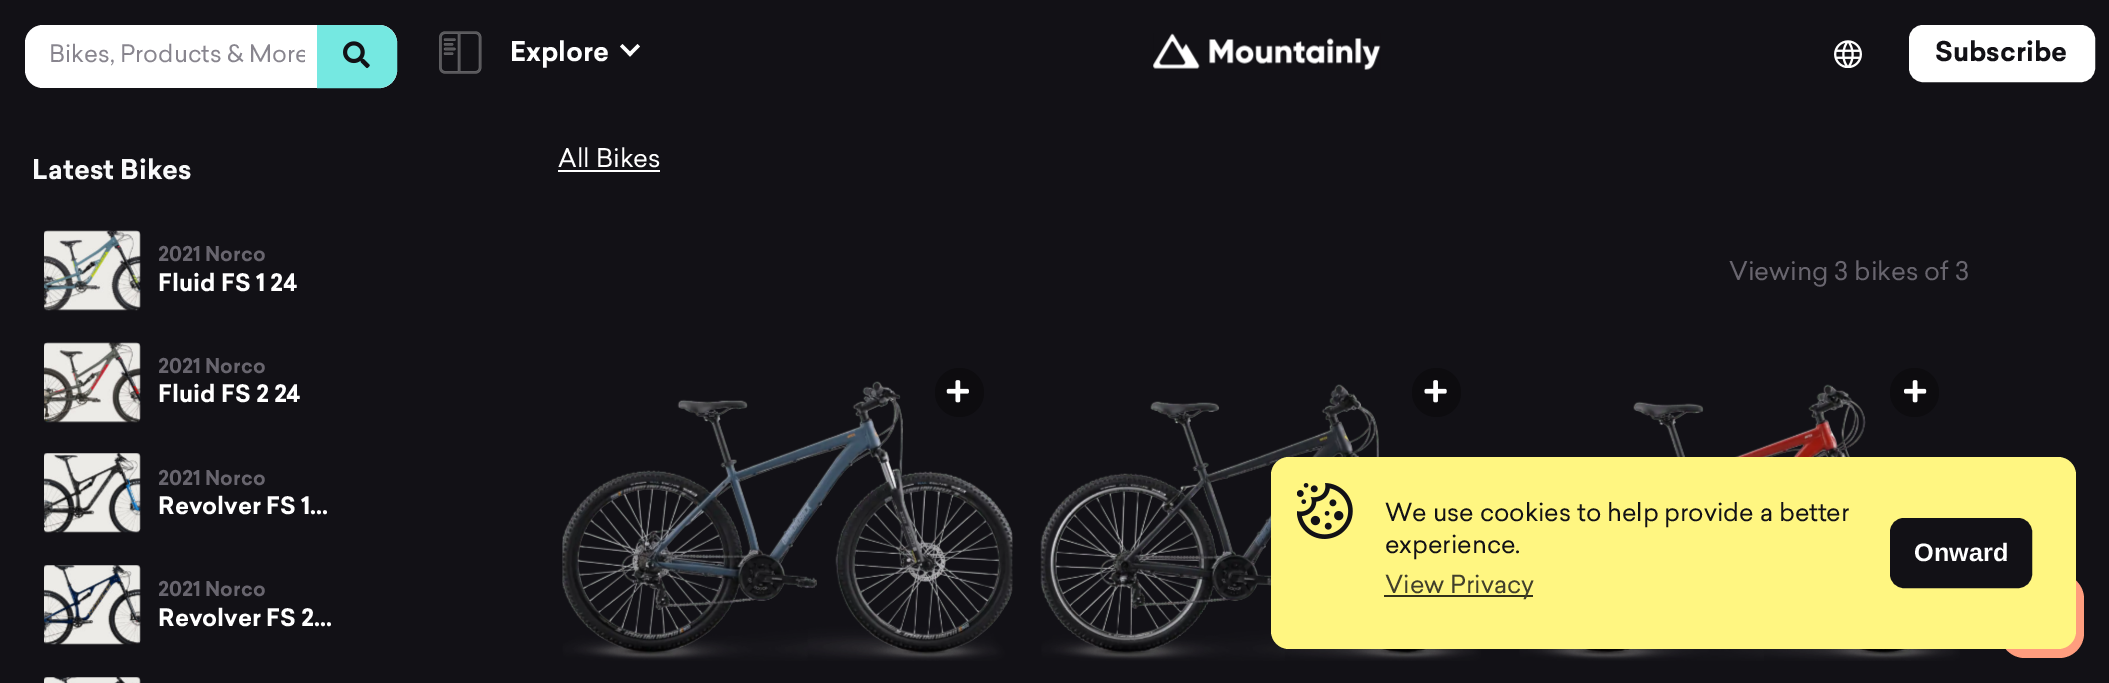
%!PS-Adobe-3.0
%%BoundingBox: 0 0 2109 683
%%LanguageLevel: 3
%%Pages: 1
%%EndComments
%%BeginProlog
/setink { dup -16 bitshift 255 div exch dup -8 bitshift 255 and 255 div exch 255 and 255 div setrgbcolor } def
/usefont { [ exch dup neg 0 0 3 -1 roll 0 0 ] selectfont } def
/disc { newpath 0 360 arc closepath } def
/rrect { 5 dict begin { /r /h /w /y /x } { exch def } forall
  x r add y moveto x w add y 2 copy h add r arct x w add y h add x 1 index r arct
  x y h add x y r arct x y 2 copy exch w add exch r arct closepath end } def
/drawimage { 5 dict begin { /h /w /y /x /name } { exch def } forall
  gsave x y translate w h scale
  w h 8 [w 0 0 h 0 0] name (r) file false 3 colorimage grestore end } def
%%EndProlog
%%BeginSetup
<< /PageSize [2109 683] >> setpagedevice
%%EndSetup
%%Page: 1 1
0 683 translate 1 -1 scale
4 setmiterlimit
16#121116 setink
0 0 2109 683 rectfill
16#FFFFFF setink
25 25 372 63 18 rrect fill
gsave
49 42 256 28 rectclip
/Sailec-Regular 23.6 usefont
16#88858E setink
49 62 moveto (Bikes, Products & More) show
grestore
16#75E8E1 setink
318 26 moveto 379 26 lineto 388.5 26 396 33.5 396 43 curveto 396 70 lineto 396 79.5 388.5 87 379 87 curveto 318 87 lineto closepath gsave fill grestore
2 setlinewidth
stroke
(img1.raw) 343 41 27 28 drawimage
/Sailec-Bold 26.75 usefont
16#F8F9FA setink
32 179 moveto (Latest Bikes) show
(img2.raw) 44 230 97 81 drawimage
/Sailec-Bold 20 usefont
16#68656E setink
158 261 moveto (2021 Norco) show
/Sailec-Bold 23.6 usefont
16#FFFFFF setink
158 291 moveto (Fluid FS 1 24) show
(img3.raw) 44 342 97 81 drawimage
/Sailec-Bold 20 usefont
16#68656E setink
158 373 moveto (2021 Norco) show
/Sailec-Bold 23.6 usefont
16#FFFFFF setink
158 402 moveto (Fluid FS 2 24) show
(img4.raw) 44 453 97 80 drawimage
/Sailec-Bold 20 usefont
16#68656E setink
158 485 moveto (2021 Norco) show
/Sailec-Bold 23.6 usefont
16#FFFFFF setink
158 514 moveto (Revolver FS 1…) show
(img5.raw) 44 565 97 80 drawimage
/Sailec-Bold 20 usefont
16#68656E setink
158 596 moveto (2021 Norco) show
/Sailec-Bold 23.6 usefont
16#FFFFFF setink
158 626 moveto (Revolver FS 2…) show
(img6.raw) 44 677 97 6 drawimage
(img7.raw) 439 31 43 43 drawimage
/Sailec-Bold 26.75 usefont
510 61 moveto (Explore) show
637.5 44 moveto 640 46.5 lineto 630 56.5 lineto 627.5 54 lineto closepath fill
622.5 44 moveto 632.5 54 lineto 630 56.5 lineto 620 46.5 lineto closepath fill
(img8.raw) 1153 33 228 37 drawimage
(img9.raw) 1834 40 28 28 drawimage
1910 26 184 55 13 rrect gsave fill grestore
stroke
16#121116 setink
1935 61 moveto (Subscribe) show
/Sailec-Regular 25.25 usefont
16#FFFFFF setink
558 167 moveto (All Bikes) show
558 170 102 2 rectfill
16#68656E setink
1729 280 moveto (Viewing 3 bikes of 3) show
(img11.raw) 562 381 451 280 drawimage
16#0D0C0F setink
959.5 392.5 24.5 disc fill
(img10.raw) 946 380 23 23 drawimage
(img13.raw) 1040 384 441 277 drawimage
1436.5 392.5 24.5 disc fill
(img12.raw) 1424 380 23 23 drawimage
(img15.raw) 1519 384 441 277 drawimage
1914.5 392.5 24.5 disc fill
(img14.raw) 1904 380 23 23 drawimage
16#FF9D7E setink
2000 574 84 84 25 rrect fill
16#FFF681 setink
1271 457 805 192 18 rrect fill
(img16.raw) 1297 483 56 56 drawimage
/Sailec-Regular 24.5 usefont
16#121116 setink
1385 521 moveto (We use cookies to help provide a better) show
1385 553 moveto (experience.) show
16#33311A setink
1384 595 149 2 rectfill
16#413F2B setink
1385 593 moveto (View Privacy) show
16#121116 setink
1892 520 138 66 12 rrect gsave fill grestore
4 setlinewidth
stroke
/LiberationSans-Bold 25.25 usefont
16#FFFFFF setink
1914 561 moveto (Onward) show
showpage
%%EOF
